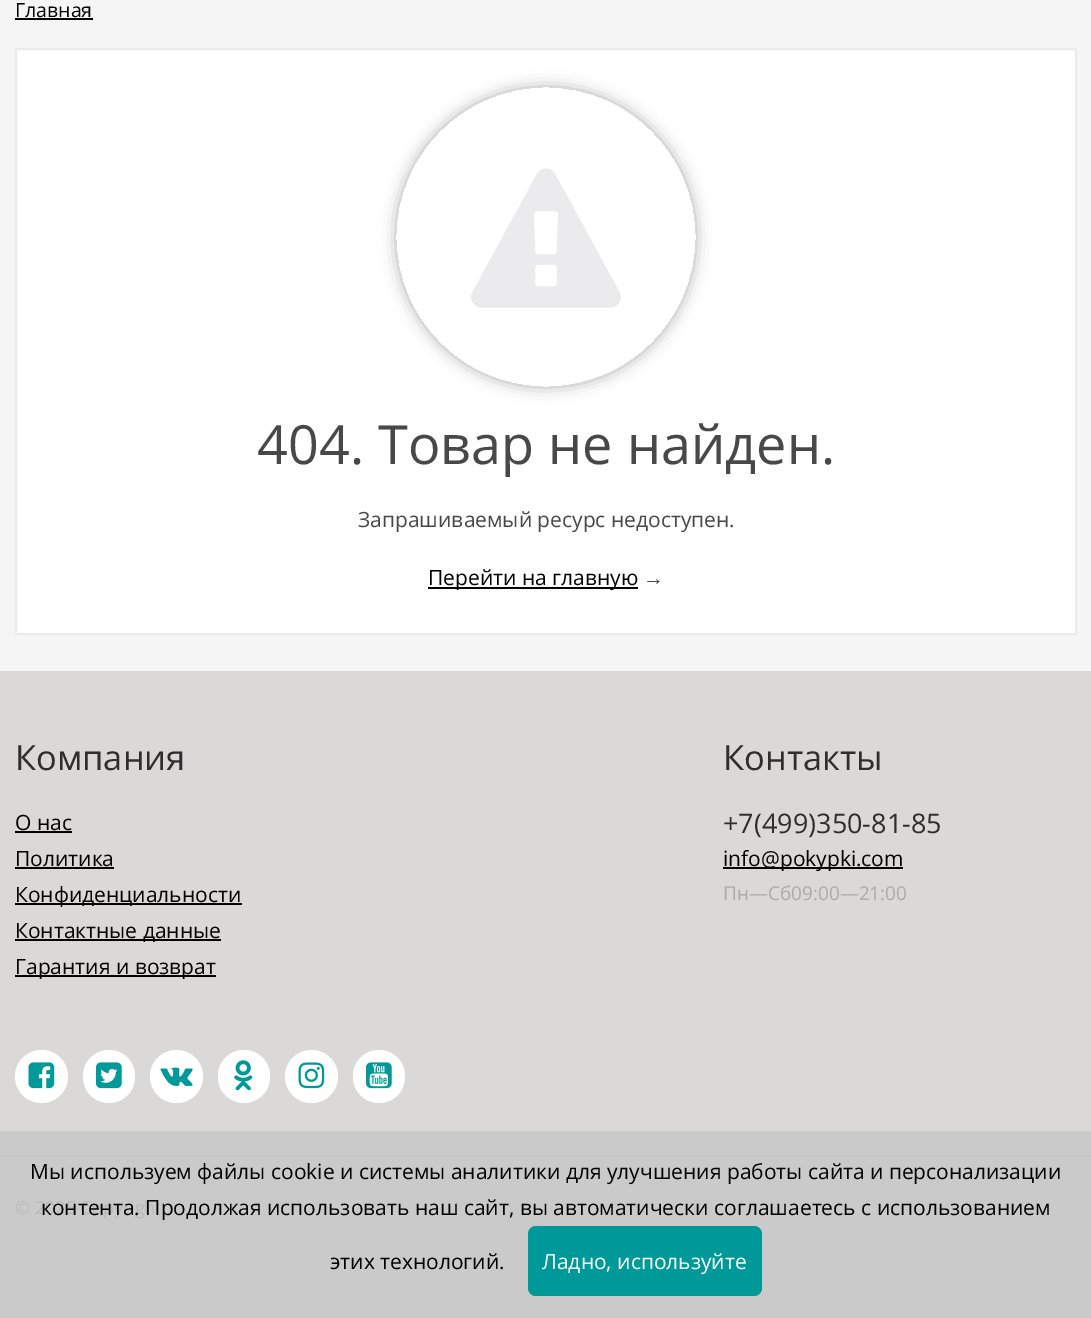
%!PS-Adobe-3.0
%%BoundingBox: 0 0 1091 1318
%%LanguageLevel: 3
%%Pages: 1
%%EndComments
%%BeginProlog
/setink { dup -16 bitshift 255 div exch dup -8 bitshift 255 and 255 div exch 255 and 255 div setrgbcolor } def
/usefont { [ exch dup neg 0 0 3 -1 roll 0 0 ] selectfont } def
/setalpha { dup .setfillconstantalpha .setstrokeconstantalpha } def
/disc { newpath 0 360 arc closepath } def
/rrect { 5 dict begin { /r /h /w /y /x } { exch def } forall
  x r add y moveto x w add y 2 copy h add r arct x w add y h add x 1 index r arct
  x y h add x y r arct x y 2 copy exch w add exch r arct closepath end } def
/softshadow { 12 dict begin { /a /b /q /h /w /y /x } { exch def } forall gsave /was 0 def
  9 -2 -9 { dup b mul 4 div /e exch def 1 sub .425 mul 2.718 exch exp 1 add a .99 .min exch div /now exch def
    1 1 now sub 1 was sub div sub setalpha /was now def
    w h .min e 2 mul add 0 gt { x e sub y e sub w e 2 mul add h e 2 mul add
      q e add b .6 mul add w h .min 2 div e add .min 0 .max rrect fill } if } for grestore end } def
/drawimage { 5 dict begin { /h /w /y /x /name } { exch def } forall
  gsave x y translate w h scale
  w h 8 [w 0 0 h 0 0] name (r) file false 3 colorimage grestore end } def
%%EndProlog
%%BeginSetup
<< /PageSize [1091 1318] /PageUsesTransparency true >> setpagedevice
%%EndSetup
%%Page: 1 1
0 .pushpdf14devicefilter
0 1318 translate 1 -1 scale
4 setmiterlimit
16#F5F5F6 setink
0 0 1091 1318 rectfill
/OpenSans-Regular 19.5 usefont
16#000000 setink
15 17 moveto (Главная) show
15 18 78 2 rectfill
16#FFFFFF setink
16 49 moveto 1076 49 lineto 1076 634 lineto 16 634 lineto closepath gsave fill grestore
16#EBEBEB setink
2 setlinewidth
stroke
gsave
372 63 moveto 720 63 lineto 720 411 lineto 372 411 lineto closepath 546 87 moveto 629 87 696 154 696 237 curveto 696 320 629 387 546 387 curveto 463 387 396 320 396 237 curveto 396 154 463 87 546 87 curveto closepath eoclip newpath
16#000000 setink
396 87 300 300 150 7.5 0.3 softshadow
grestore
(img1.raw) 471 168 150 140 drawimage
/OpenSans-Regular 54 usefont
16#484848 setink
257 464 moveto (404. Товар не найден.) show
/OpenSans-Regular 21 usefont
358 527 moveto (Запрашиваемый ресурс недоступен.) show
16#000000 setink
428 587 210 2 rectfill
428 585 moveto (Перейти на главную) show
/LiberationSans-Regular 21 usefont
16#484848 setink
643 585 moveto (→) show
16#DBD8D8 setink
0 671 1091 460 rectfill
16#CACACA setink
0 1131 1091 187 rectfill
/OpenSans-Regular 34.5 usefont
16#2E2E2E setink
15 770 moveto (Компания) show
/OpenSans-Regular 21 usefont
16#000000 setink
15 830 moveto (О нас) show
15 831 57 2 rectfill
15 866 moveto (Политика) show
15 867 99 2 rectfill
15 903 227 2 rectfill
15 902 moveto (Конфиденциальности) show
15 939 206 2 rectfill
15 938 moveto (Контактные данные) show
15 975 201 2 rectfill
15 974 moveto (Гарантия и возврат) show
/OpenSans-Regular 34.5 usefont
16#2E2E2E setink
723 770 moveto (Контакты) show
/OpenSans-Regular 27 usefont
723 833 moveto (+7\(499\)350-81-85) show
16#000000 setink
723 867 180 2 rectfill
/OpenSans-Regular 21 usefont
723 866 moveto (info@pokypki.com) show
/OpenSans-Regular 19 usefont
16#AAAAAA setink
723 900 moveto (Пн—Сб09:00—21:00) show
16#FFFFFF setink
41.5 1076.5 26.5 disc fill
(img2.raw) 28 1062 27 27 drawimage
83 1050 52 53 26 rrect fill
(img3.raw) 96 1062 26 27 drawimage
176.5 1076.5 26.5 disc fill
(img4.raw) 160 1067 33 19 drawimage
218 1050 52 53 26 rrect fill
(img5.raw) 234 1060 19 31 drawimage
311.5 1076.5 26.5 disc fill
(img6.raw) 298 1062 27 27 drawimage
353 1050 52 53 26 rrect fill
(img7.raw) 366 1062 26 27 drawimage
16#C5C5C5 setink
0 1155 1091 2 rectfill
/OpenSans-Regular 18 usefont
16#B9B9B9 setink
15 1214 moveto (© 2025 Copyright) show
/OpenSans-Regular 21 usefont
16#000000 setink
[
    [(Мы используем файлы cookie и системы аналитики для улучшения работы сайта и персонализации) 30 1179]
    [(контента. Продолжая использовать наш сайт, вы автоматически соглашаетесь с использованием) 41 1215]
    [(этих технологий.) 330 1269]
] { aload pop moveto show } forall
16#009999 setink
528 1226 234 70 8 rrect fill
16#FFFFFF setink
542 1269 moveto (Ладно, используйте) show
.poppdf14devicefilter showpage
%%EOF
